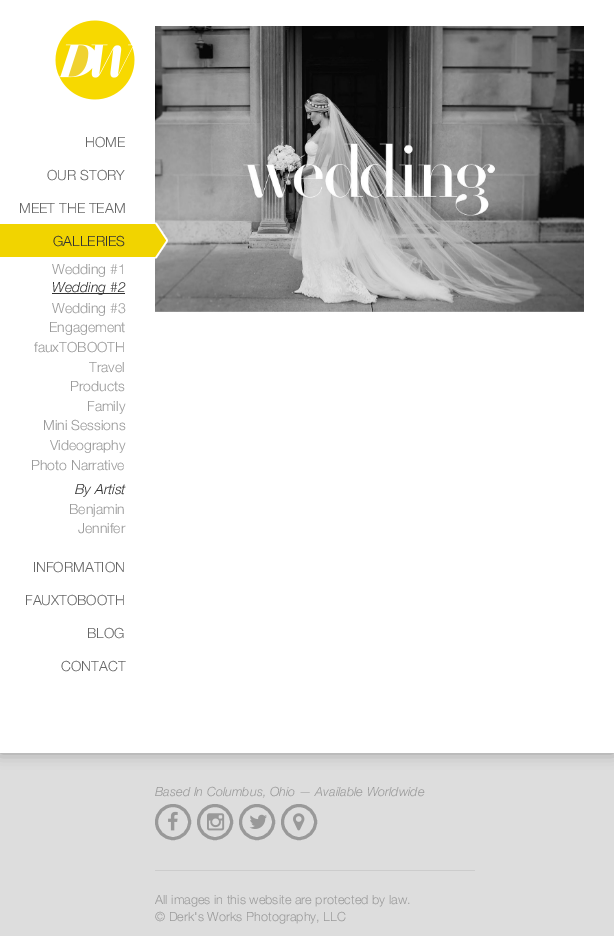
%!PS-Adobe-3.0
%%BoundingBox: 0 0 614 936
%%LanguageLevel: 3
%%Pages: 1
%%EndComments
%%BeginProlog
/setink { dup -16 bitshift 255 div exch dup -8 bitshift 255 and 255 div exch 255 and 255 div setrgbcolor } def
/usefont { [ exch dup neg 0 0 3 -1 roll 0 0 ] selectfont } def
/setalpha { dup .setfillconstantalpha .setstrokeconstantalpha } def
/disc { newpath 0 360 arc closepath } def
/rrect { 5 dict begin { /r /h /w /y /x } { exch def } forall
  x r add y moveto x w add y 2 copy h add r arct x w add y h add x 1 index r arct
  x y h add x y r arct x y 2 copy exch w add exch r arct closepath end } def
/softshadow { 12 dict begin { /a /b /q /h /w /y /x } { exch def } forall gsave /was 0 def
  9 -2 -9 { dup b mul 4 div /e exch def 1 sub .425 mul 2.718 exch exp 1 add a .99 .min exch div /now exch def
    1 1 now sub 1 was sub div sub setalpha /was now def
    w h .min e 2 mul add 0 gt { x e sub y e sub w e 2 mul add h e 2 mul add
      q e add b .6 mul add w h .min 2 div e add .min 0 .max rrect fill } if } for grestore end } def
/drawimage { 5 dict begin { /h /w /y /x /name } { exch def } forall
  gsave x y translate w h scale
  w h 8 [w 0 0 h 0 0] name (r) file false 3 colorimage grestore end } def
%%EndProlog
%%BeginSetup
<< /PageSize [614 936] /PageUsesTransparency true >> setpagedevice
%%EndSetup
%%Page: 1 1
0 .pushpdf14devicefilter
0 936 translate 1 -1 scale
4 setmiterlimit
16#DDDDDD setink
0 0 614 936 rectfill
16#999999 setink
0 -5 614 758 0 7.5 1 softshadow
16#FFFFFF setink
0 0 614 753 rectfill
(img1.raw) 155 26 429 286 drawimage
(img2.raw) 55 20 80 80 drawimage
/HelveticaNeue-Light 14 usefont
16#666666 setink
[
    [(HOME) 85 147]
    [(OUR STORY) 47 180]
    [(MEET THE TEAM) 19 213]
] { aload pop moveto show } forall
16#F1D400 setink
0 224 155 33 rectfill
16#333333 setink
53 246 moveto (GALLERIES) show
(img3.raw) 155 222 13 37 drawimage
16#999999 setink
52 274 moveto (Wedding #1) show
16#333333 setink
52 293 73 1 rectfill
/HelveticaNeue-LightItalic 14 usefont
52 292 moveto (Wedding #2) show
/HelveticaNeue-Light 14 usefont
16#999999 setink
[
    [(Wedding #3) 52 313]
    [(Engagement) 49 332]
    [(fauxTOBOOTH) 34 352]
    [(Travel) 89 372]
    [(Products) 70 391]
    [(Family) 87 411]
    [(Mini Sessions) 43 430]
    [(Videography) 50 450]
    [(Photo Narrative) 31 470]
] { aload pop moveto show } forall
/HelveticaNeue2-LightItalic 14 usefont
16#333333 setink
74 494 moveto (By Artist) show
/HelveticaNeue-Light 14 usefont
16#999999 setink
69 514 moveto (Benjamin) show
78 533 moveto (Jennifer) show
16#666666 setink
[
    [(INFORMATION) 33 572]
    [(FAUXTOBOOTH) 25 605]
    [(BLOG) 87 638]
    [(CONTACT) 61 671]
] { aload pop moveto show } forall
/HelveticaNeue-LightItalic 12.7 usefont
16#999999 setink
155 796 moveto (Based In Columbus, Ohio — Available Worldwide) show
3 setlinewidth
173 822 16.5 disc stroke
(img4.raw) 168 811 10 20 drawimage
215 822 16.5 disc stroke
(img5.raw) 207 813 18 18 drawimage
257 822 16.5 disc stroke
(img6.raw) 249 814 18 15 drawimage
299 822 16.5 disc stroke
(img7.raw) 293 813 12 18 drawimage
16#CCCCCC setink
155 870 320 1 rectfill
/HelveticaNeue-Light 12.7 usefont
16#999999 setink
155 904 moveto (All images in this website are protected by law.) show
155 921 moveto (© Derk's Works Photography, LLC) show
.poppdf14devicefilter showpage
%%EOF
